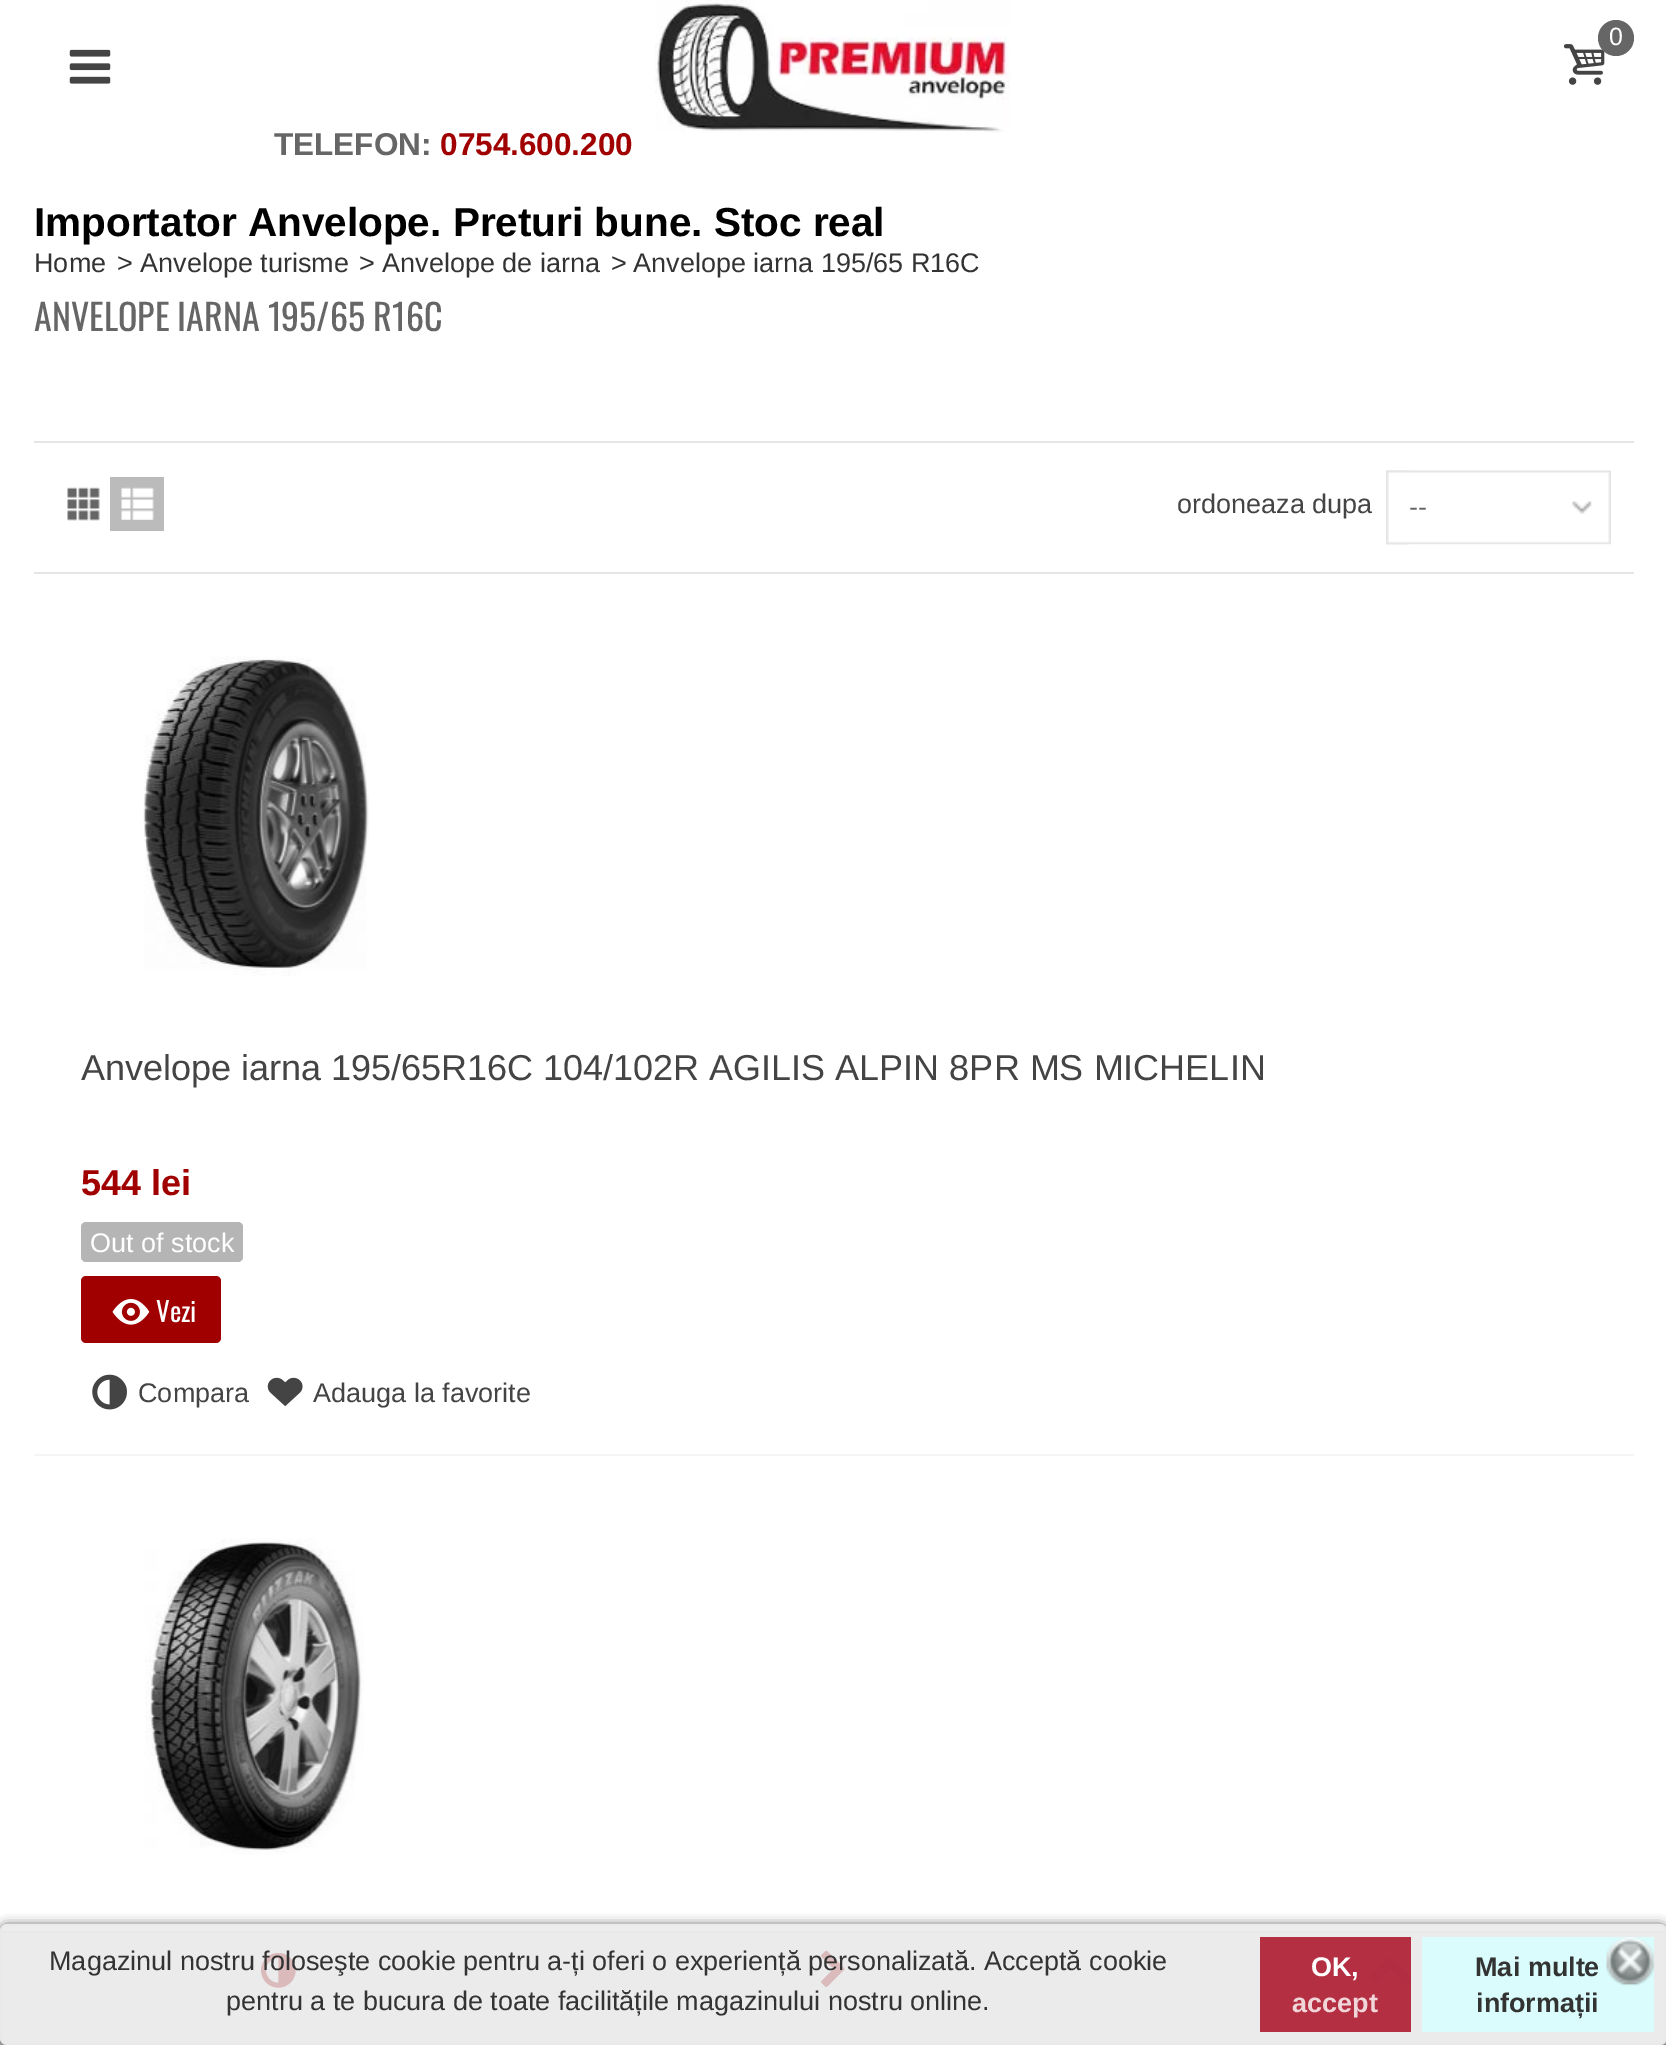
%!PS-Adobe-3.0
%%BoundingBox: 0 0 1666 2045
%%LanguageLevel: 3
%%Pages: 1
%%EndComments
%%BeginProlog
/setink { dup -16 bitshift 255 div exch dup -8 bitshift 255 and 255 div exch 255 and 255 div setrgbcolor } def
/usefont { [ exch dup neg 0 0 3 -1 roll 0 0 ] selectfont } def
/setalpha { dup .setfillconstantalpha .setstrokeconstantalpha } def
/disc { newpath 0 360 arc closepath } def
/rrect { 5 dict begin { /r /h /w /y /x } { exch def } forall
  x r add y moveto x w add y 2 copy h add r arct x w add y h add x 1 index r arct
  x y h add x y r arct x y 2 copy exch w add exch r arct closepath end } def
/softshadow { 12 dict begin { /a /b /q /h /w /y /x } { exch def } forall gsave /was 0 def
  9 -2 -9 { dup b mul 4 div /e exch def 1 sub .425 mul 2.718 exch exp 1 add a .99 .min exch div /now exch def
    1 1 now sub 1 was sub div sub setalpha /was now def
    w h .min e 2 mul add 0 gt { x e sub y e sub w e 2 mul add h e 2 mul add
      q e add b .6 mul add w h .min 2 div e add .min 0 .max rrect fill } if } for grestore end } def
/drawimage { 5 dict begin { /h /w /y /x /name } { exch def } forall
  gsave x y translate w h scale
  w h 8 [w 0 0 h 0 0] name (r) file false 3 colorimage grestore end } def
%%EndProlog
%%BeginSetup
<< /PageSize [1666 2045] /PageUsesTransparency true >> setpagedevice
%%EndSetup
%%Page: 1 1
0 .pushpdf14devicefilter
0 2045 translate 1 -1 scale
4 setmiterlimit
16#FFFFFF setink
0 0 1666 2045 rectfill
(img1.raw) 655 0 355 133 drawimage
(img2.raw) 1563 44 42 41 drawimage
16#666666 setink
1616 38 18 disc fill
/LiberationSans-Regular 25 usefont
16#FFFFFF setink
1609 45 moveto (0) show
(img3.raw) 69 49 42 35 drawimage
/LiberationSans-Bold 31.5 usefont
16#666666 setink
274 155 moveto (TELEFON:) show
16#A00000 setink
440 155 moveto (0754.600.200) show
/LiberationSans-Bold 40.5 usefont
16#000000 setink
34 236 moveto (Importator Anvelope. Preturi bune. Stoc real) show
16#F1F1F1 setink
0 1933 1666 112 rectfill
16#E5E5E5 setink
0 1931 1666 2 rectfill
(img14.raw) 261 1952 35 36 drawimage
(img15.raw) 821 1950 24 38 drawimage
16#CCCCCC setink
1370 1977 moveto 1390 1957 lineto 1411 1977 lineto 1405 1983 lineto 1390 1969 lineto 1376 1983 lineto closepath fill
gsave
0 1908 moveto 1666 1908 lineto 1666 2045 lineto 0 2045 lineto closepath 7 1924 moveto 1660 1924 lineto 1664 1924 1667 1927 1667 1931 curveto 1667 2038 lineto 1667 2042 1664 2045 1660 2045 curveto 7 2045 lineto 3 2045 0 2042 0 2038 curveto 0 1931 lineto 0 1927 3 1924 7 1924 curveto closepath eoclip newpath
16#000000 setink
0 1926 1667 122 7 5.5 0.8 softshadow
grestore
0.8 setalpha
16#E9E9E9 setink
0 1924 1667 121 7 rrect fill
2 setlinewidth
1 1925 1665 119 6 rrect stroke
/LiberationSans-Regular 27 usefont
1 setalpha
16#333333 setink
49 1970 moveto (Magazinul nostru foloseşte cookie pentru a-ți oferi o experiență personalizată. Acceptă cookie) show
226 2010 moveto (pentru a te bucura de toate facilitățile magazinului nostru online.) show
0.8 setalpha
16#A60018 setink
1260 1937 151 95 rectfill
/LiberationSans-Bold 27 usefont
1 setalpha
16#FFFFFF setink
1311 1976 moveto (OK,) show
16#F0D5D9 setink
1292 2012 moveto (accept) show
16#DAFCFC setink
1422 1937 232 95 rectfill
16#333333 setink
1475 1976 moveto (Mai multe) show
1476 2012 moveto (informații) show
(img4.raw) 1606 1937 49 49 drawimage
/LiberationSans-Regular 27 usefont
[
    [(Home) 34 272]
    [(>) 117 272]
    [(Anvelope turisme) 140 272]
    [(>) 359 272]
    [(Anvelope de iarna) 382 272]
    [(>) 611 272]
    [(Anvelope iarna 195/65 R16C) 633 272]
] { aload pop moveto show } forall
/Oswald-Regular 36 usefont
16#666666 setink
34 331 moveto (ANVELOPE IARNA 195/65 R16C) show
16#E5E5E5 setink
34 441 1600 2 rectfill
34 572 1600 2 rectfill
(img5.raw) 67 487 33 34 drawimage
16#BBBBBB setink
110 477 54 54 rectfill
(img6.raw) 121 487 33 33 drawimage
/LiberationSans-Regular 27 usefont
16#444444 setink
1177 513 moveto (ordoneaza dupa) show
(img7.raw) 1386 470 23 75 drawimage
(img8.raw) 1408 470 203 75 drawimage
16#666666 setink
1409 516 moveto (--) show
16#F5F5F5 setink
34 1454 1600 2 rectfill
(img9.raw) 143 656 226 320 drawimage
/LiberationSans-Regular 36 usefont
16#444444 setink
81 1080 moveto (Anvelope iarna 195/65R16C 104/102R AGILIS ALPIN 8PR MS MICHELIN) show
/LiberationSans-Bold 36 usefont
16#A00000 setink
81 1195 moveto (544 lei) show
16#B5B5B5 setink
81 1222 162 40 5 rrect fill
/LiberationSans-Regular 27 usefont
16#FFFFFF setink
90 1252 moveto (Out of stock) show
16#A00000 setink
81 1276 140 67 5 rrect fill
(img10.raw) 112 1299 38 26 drawimage
/Oswald-Regular 27 usefont
16#FFFFFF setink
156 1322 moveto (Vezi) show
(img11.raw) 92 1374 35 36 drawimage
/LiberationSans-Regular 27 usefont
16#444444 setink
138 1402 moveto (Compara) show
(img12.raw) 267 1377 36 30 drawimage
313 1402 moveto (Adauga la favorite) show
(img13.raw) 145 1538 219 317 drawimage
.poppdf14devicefilter showpage
%%EOF
